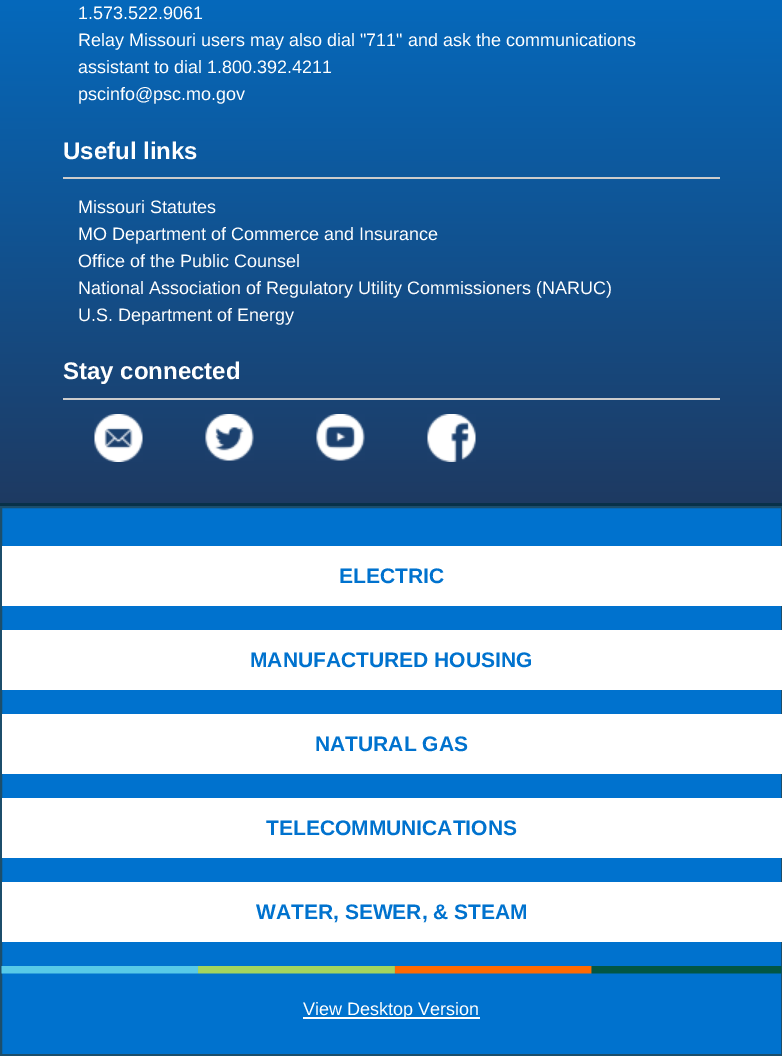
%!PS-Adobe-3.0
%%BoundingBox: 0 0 782 1056
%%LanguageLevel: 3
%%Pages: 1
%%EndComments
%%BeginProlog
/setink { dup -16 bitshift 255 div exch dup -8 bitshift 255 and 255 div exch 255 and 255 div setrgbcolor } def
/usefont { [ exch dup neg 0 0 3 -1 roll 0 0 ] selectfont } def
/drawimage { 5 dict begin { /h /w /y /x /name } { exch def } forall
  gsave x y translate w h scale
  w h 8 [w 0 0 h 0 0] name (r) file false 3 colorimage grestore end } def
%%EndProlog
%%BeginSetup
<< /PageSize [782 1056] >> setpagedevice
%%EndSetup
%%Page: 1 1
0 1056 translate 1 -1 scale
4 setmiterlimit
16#FFFFFF setink
0 0 782 1056 rectfill
gsave 0 0 moveto 782 0 lineto 782 503 lineto 0 503 lineto closepath clip newpath
<< /ShadingType 2 /ColorSpace /DeviceRGB /Coords [391 -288 392 503] /Extend [true true] /Function << /FunctionType 3 /Domain [0 1] /Functions [<< /FunctionType 2 /Domain [0 1] /C0 [0 0.447 0.808] /C1 [0 0.447 0.808] /N 1 >> << /FunctionType 2 /Domain [0 1] /C0 [0 0.447 0.808] /C1 [0.118 0.227 0.384] /N 1 >>] /Bounds [0.24] /Encode [0 1 0 1] >> >> shfill grestore
16#083149 setink
0 503 782 3 rectfill
/LiberationSans-Regular 18 usefont
16#FFFFFF setink
[
    [(1.573.522.9061) 78 19]
    [(Relay Missouri users may also dial "711" and ask the communications) 78 46]
    [(assistant to dial 1.800.392.4211) 78 73]
    [(pscinfo@psc.mo.gov) 78 100]
] { aload pop moveto show } forall
16#CCCCCC setink
63 177 657 2 rectfill
/LiberationSans-Bold 24 usefont
16#FFFFFF setink
63 159 moveto (Useful links) show
/LiberationSans-Regular 18 usefont
[
    [(Missouri Statutes) 78 213]
    [(MO Department of Commerce and Insurance) 78 240]
    [(Office of the Public Counsel) 78 267]
    [(National Association of Regulatory Utility Commissioners \(NARUC\)) 78 294]
    [(U.S. Department of Energy) 78 321]
] { aload pop moveto show } forall
16#CCCCCC setink
63 398 657 2 rectfill
/LiberationSans-Bold 24 usefont
16#FFFFFF setink
63 379 moveto (Stay connected) show
(img1.raw) 94 414 49 48 drawimage
(img2.raw) 205 414 49 47 drawimage
(img3.raw) 316 414 49 47 drawimage
(img4.raw) 427 414 49 48 drawimage
16#0072CE setink
1 507 moveto 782 507 lineto 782 1055 lineto 1 1055 lineto closepath gsave fill grestore
16#1C4E6B setink
2 setlinewidth
stroke
16#FFFFFF setink
2 546 780 60 rectfill
/LiberationSans-Bold 21 usefont
16#0072CE setink
339 583 moveto (ELECTRIC) show
16#FFFFFF setink
2 630 780 60 rectfill
16#0072CE setink
250 667 moveto (MANUFACTURED HOUSING) show
16#FFFFFF setink
2 714 780 60 rectfill
16#0072CE setink
315 751 moveto (NATURAL GAS) show
16#FFFFFF setink
2 798 780 60 rectfill
16#0072CE setink
266 835 moveto (TELECOMMUNICATIONS) show
16#FFFFFF setink
2 882 780 60 rectfill
16#0072CE setink
256 919 moveto (WATER, SEWER, & STEAM) show
(img5.raw) 1 966 781 8 drawimage
16#FFFFFF setink
303 1017 177 2 rectfill
/LiberationSans-Regular 18 usefont
303 1015 moveto (View Desktop Version) show
showpage
%%EOF
